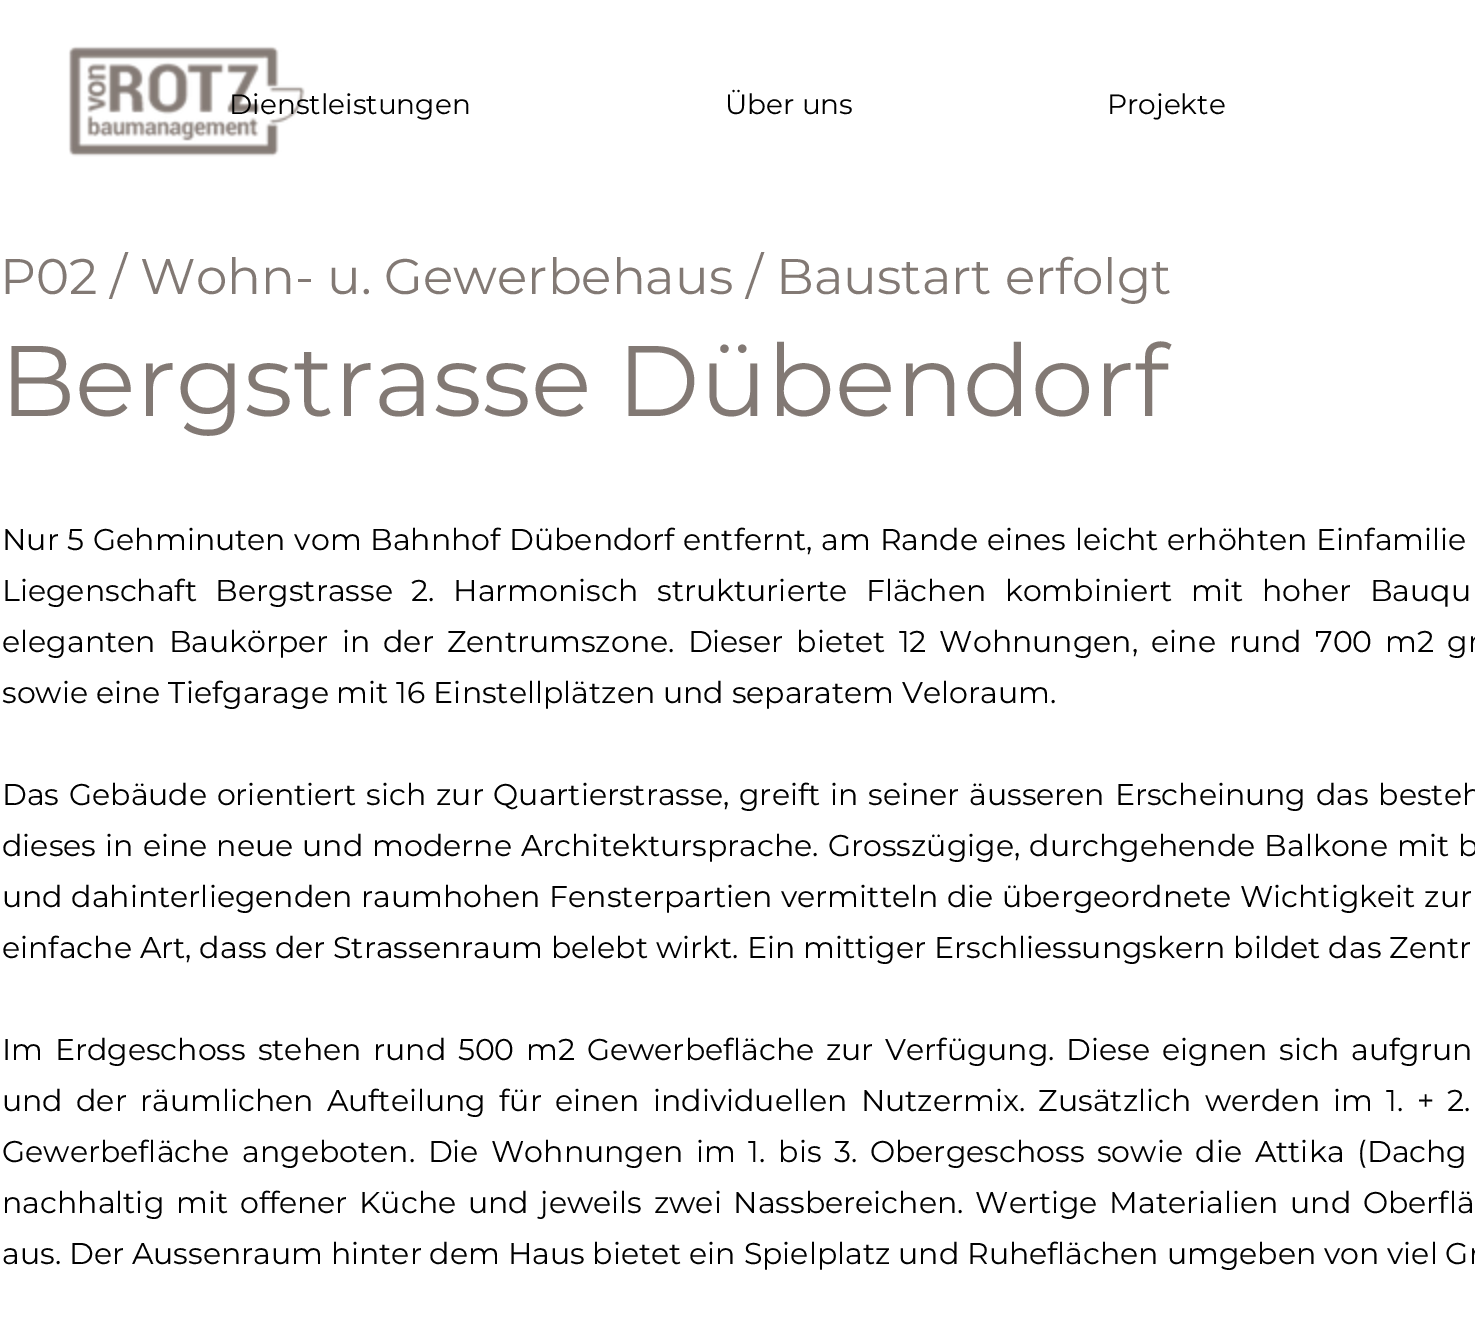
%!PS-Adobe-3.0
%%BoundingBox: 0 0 1475 1327
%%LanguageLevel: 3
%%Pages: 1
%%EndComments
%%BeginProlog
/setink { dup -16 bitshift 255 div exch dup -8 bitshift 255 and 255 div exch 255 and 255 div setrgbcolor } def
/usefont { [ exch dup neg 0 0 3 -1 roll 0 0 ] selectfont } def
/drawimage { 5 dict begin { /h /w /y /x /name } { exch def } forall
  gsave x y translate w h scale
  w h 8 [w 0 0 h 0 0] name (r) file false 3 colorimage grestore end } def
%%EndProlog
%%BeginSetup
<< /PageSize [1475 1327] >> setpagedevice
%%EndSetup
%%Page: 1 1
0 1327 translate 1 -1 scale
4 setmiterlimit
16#FFFFFF setink
0 0 1475 1327 rectfill
(img1.raw) 68 46 237 111 drawimage
/Montserrat-Regular 28 usefont
16#000000 setink
[
    [(Dienstleistungen) 229 114]
    [(Über uns) 725 114]
    [(Projekte) 1107 114]
] { aload pop moveto show } forall
/Montserrat-Regular 50 usefont
16#827974 setink
0 294 moveto (P02 / Wohn- u. Gewerbehaus / Baustart erfolgt) show
/Montserrat-Regular 100 usefont
0 416 moveto (Bergstrasse Dübendorf) show
/Montserrat-Regular 30 usefont
16#000000 setink
2 550 moveto 0.9 0 32 (Nur 5 Gehminuten vom Bahnhof Dübendorf entfernt, am Rande eines leicht erhöhten Einfamilie) widthshow
2 601 moveto 10.75 0 32 (Liegenschaft Bergstrasse 2. Harmonisch strukturierte Flächen kombiniert mit hoher Bauqu) widthshow
2 652 moveto 5.25 0 32 (eleganten Baukörper in der Zentrumszone. Dieser bietet 12 Wohnungen, eine rund 700 m2 gr) widthshow
2 703 moveto (sowie eine Tiefgarage mit 16 Einstellplätzen und separatem Veloraum.) show
2 805 moveto 1.9 0 32 (Das Gebäude orientiert sich zur Quartierstrasse, greift in seiner äusseren Erscheinung das besteh) widthshow
2 856 moveto 1.25 0 32 (dieses in eine neue und moderne Architektursprache. Grosszügige, durchgehende Balkone mit b) widthshow
2 907 moveto 0.75 0 32 (und dahinterliegenden raumhohen Fensterpartien vermitteln die übergeordnete Wichtigkeit zur) widthshow
2 958 moveto (einfache Art, dass der Strassenraum belebt wirkt. Ein mittiger Erschliessungskern bildet das Zentr) show
2 1060 moveto 3.9 0 32 (Im Erdgeschoss stehen rund 500 m2 Gewerbefläche zur Verfügung. Diese eignen sich aufgrun) widthshow
2 1111 moveto 5.4 0 32 (und der räumlichen Aufteilung für einen individuellen Nutzermix. Zusätzlich werden im 1. + 2.) widthshow
2 1162 moveto 4.75 0 32 (Gewerbefläche angeboten. Die Wohnungen im 1. bis 3. Obergeschoss sowie die Attika \(Dachg) widthshow
2 1213 moveto 3.9 0 32 (nachhaltig mit offener Küche und jeweils zwei Nassbereichen. Wertige Materialien und Oberflä) widthshow
2 1264 moveto (aus. Der Aussenraum hinter dem Haus bietet ein Spielplatz und Ruheflächen umgeben von viel Gr) show
showpage
%%EOF
